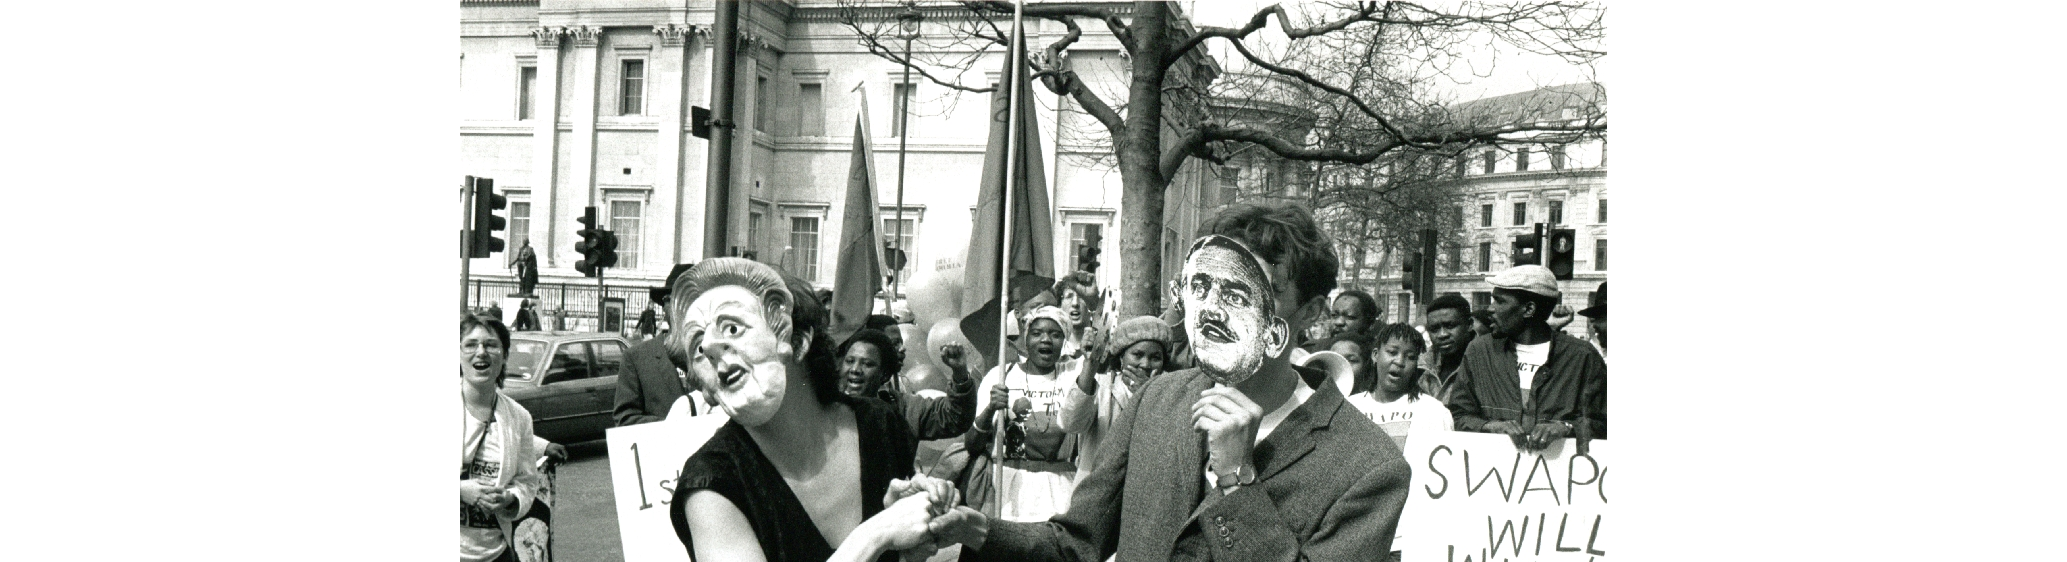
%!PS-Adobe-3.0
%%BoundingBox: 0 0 2067 562
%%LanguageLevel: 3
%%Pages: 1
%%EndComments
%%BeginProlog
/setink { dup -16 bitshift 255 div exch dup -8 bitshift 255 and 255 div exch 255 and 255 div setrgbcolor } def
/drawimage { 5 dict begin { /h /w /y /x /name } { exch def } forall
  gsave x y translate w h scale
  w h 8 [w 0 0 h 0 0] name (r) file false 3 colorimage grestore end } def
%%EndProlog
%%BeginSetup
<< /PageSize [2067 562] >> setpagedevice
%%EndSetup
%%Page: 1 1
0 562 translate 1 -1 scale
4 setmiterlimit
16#FFFFFF setink
0 0 2067 562 rectfill
(img1.raw) 460 0 1147 562 drawimage
showpage
%%EOF
